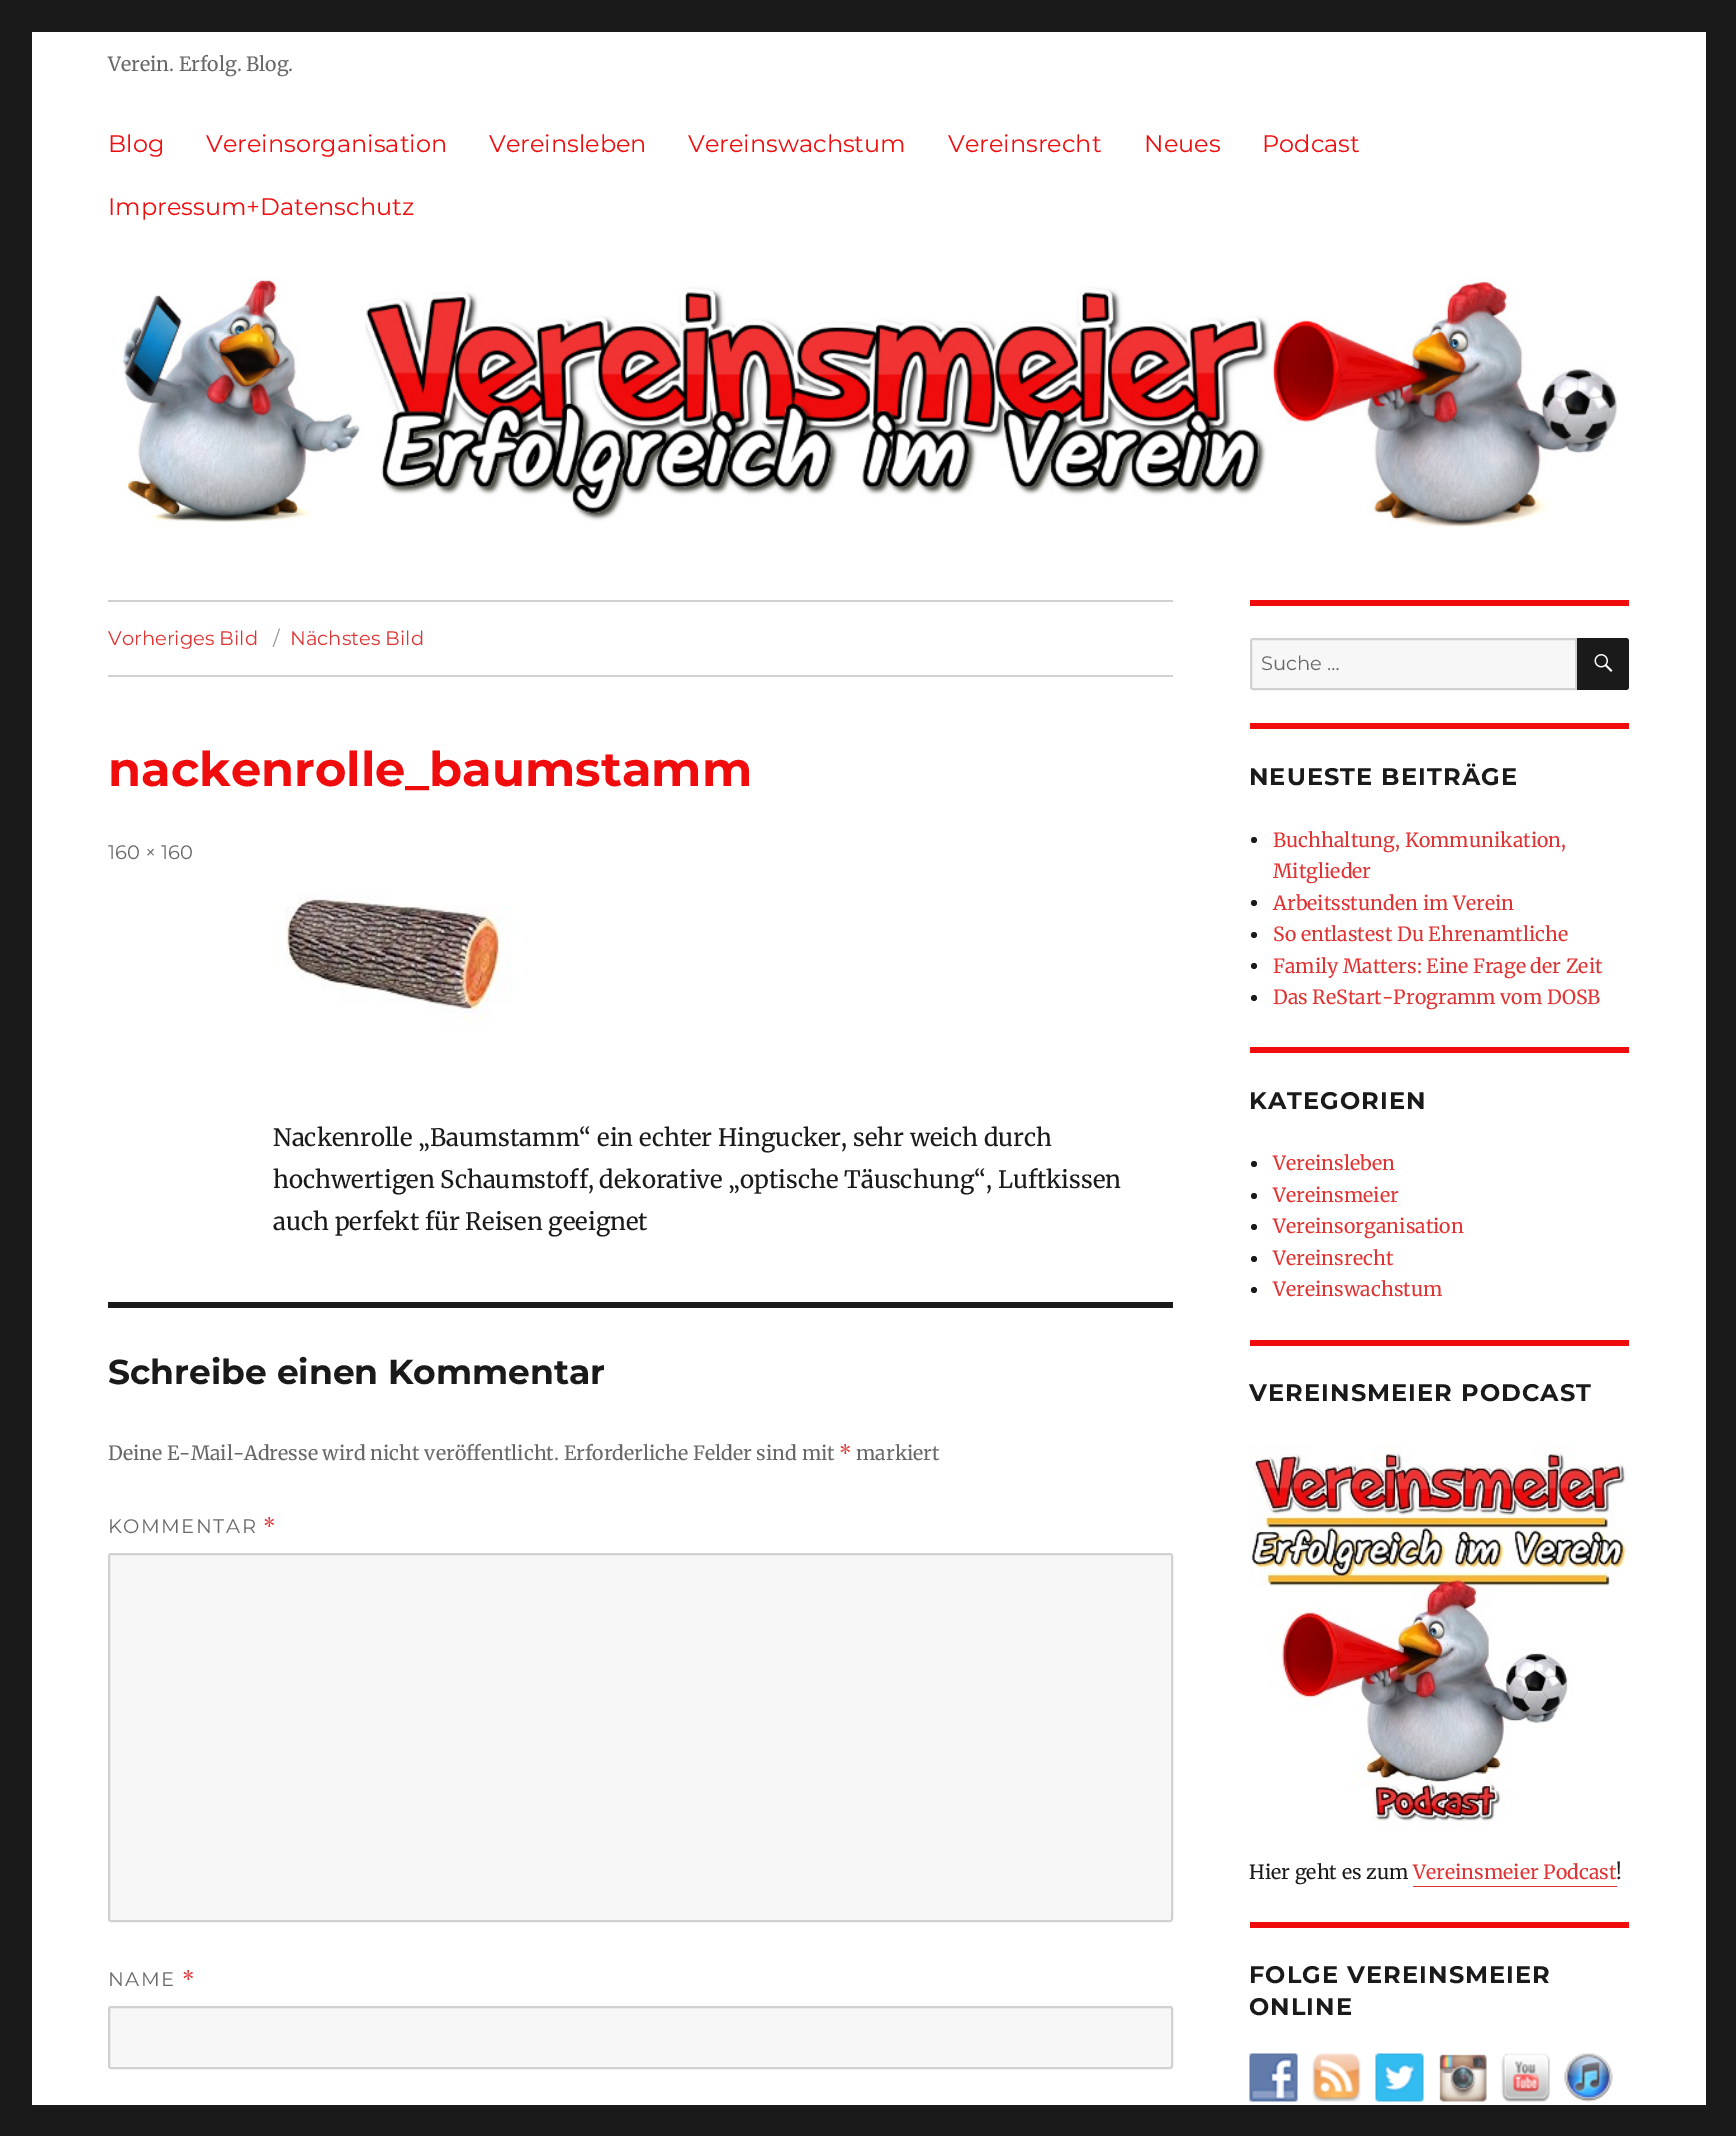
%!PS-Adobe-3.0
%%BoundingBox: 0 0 1736 2136
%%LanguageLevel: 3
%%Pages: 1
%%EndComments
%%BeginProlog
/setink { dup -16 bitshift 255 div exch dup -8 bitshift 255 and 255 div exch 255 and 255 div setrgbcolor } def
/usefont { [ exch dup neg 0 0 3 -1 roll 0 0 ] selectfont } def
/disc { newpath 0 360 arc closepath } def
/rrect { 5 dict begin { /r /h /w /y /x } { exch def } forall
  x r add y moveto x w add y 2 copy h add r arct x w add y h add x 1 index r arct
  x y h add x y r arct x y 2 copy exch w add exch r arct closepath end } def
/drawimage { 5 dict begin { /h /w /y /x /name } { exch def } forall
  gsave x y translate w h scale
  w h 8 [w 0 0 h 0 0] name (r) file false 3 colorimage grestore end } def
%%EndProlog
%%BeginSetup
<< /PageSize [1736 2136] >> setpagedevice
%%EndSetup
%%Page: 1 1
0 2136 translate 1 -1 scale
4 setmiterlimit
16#1A1A1A setink
0 0 1736 2136 rectfill
16#FFFFFF setink
32 32 1674 2073 rectfill
/Merriweather-Regular 19.5 usefont
16#686868 setink
108 71 moveto (Verein. Erfolg. Blog.) show
/Montserrat-Regular 24 usefont
16#F00C0D setink
[
    [(Blog) 108 152]
    [(Vereinsorganisation) 206 152]
    [(Vereinsleben) 489 152]
    [(Vereinswachstum) 688 152]
    [(Vereinsrecht) 948 152]
    [(Neues) 1144 152]
    [(Podcast) 1262 152]
    [(Impressum+Datenschutz) 108 215]
] { aload pop moveto show } forall
(img1.raw) 120 276 1498 252 drawimage
16#D1D1D1 setink
108 600 1065 2 rectfill
108 675 1065 2 rectfill
/Montserrat-Regular 19.5 usefont
16#E03434 setink
108 645 moveto (Vorheriges Bild) show
16#959595 setink
273 645 moveto (/) show
16#E03434 setink
290 645 moveto (Nächstes Bild) show
/Montserrat-Bold 48 usefont
16#F00C0D setink
108 786 moveto (nackenrolle_baumstamm) show
/Montserrat-Regular 19.5 usefont
16#686868 setink
108 859 moveto (160 × 160) show
(img2.raw) 273 894 240 132 drawimage
/Merriweather-Regular 24 usefont
16#1A1A1A setink
[
    [(Nackenrolle „Baumstamm“ ein echter Hingucker, sehr weich durch) 273 1146]
    [(hochwertigen Schaumstoff, dekorative „optische Täuschung“, Luftkissen) 273 1188]
    [(auch perfekt für Reisen geeignet) 273 1230]
] { aload pop moveto show } forall
108 1302 1065 6 rectfill
/Montserrat-Bold 34.5 usefont
108 1384 moveto (Schreibe einen Kommentar) show
/Merriweather-Regular 19.5 usefont
16#686868 setink
108 1460 moveto (Deine E-Mail-Adresse wird nicht veröffentlicht. Erforderliche Felder sind mit) show
16#E03434 setink
839 1460 moveto (*) show
16#686868 setink
856 1460 moveto (markiert) show
/Montserrat-Regular 19.5 usefont
108 1533 moveto 1.5 0 (KOMMENTAR) ashow
/Merriweather-Regular 19.5 usefont
16#E03434 setink
263 1533 moveto 1.5 0 (*) ashow
16#F7F7F7 setink
109 1554 1063 367 2 rrect gsave fill grestore
16#D1D1D1 setink
2 setlinewidth
stroke
/Montserrat-Regular 19.5 usefont
16#686868 setink
108 1986 moveto 1.5 0 (NAME) ashow
/Merriweather-Regular 19.5 usefont
16#E03434 setink
182 1986 moveto 1.5 0 (*) ashow
16#F7F7F7 setink
109 2007 1063 61 2 rrect gsave fill grestore
16#D1D1D1 setink
stroke
16#F00C0D setink
1250 600 379 6 rectfill
16#F7F7F7 setink
1253 639 moveto 1576 639 lineto 1576 689 lineto 1253 689 lineto 1252 689 1251 688 1251 687 curveto 1251 641 lineto 1251 640 1252 639 1253 639 curveto closepath gsave fill grestore
16#D1D1D1 setink
stroke
/Montserrat-Regular 19.5 usefont
16#686868 setink
1261 670 moveto (Suche …) show
16#1A1A1A setink
1577 638 moveto 1626 638 lineto 1627.5 638 1629 639.5 1629 641 curveto 1629 687 lineto 1629 688.5 1627.5 690 1626 690 curveto 1577 690 lineto closepath fill
(img3.raw) 1594 654 19 18 drawimage
16#F00C0D setink
1250 723 379 6 rectfill
/Montserrat-Bold 24 usefont
16#1A1A1A setink
1249 785 moveto 1.1 0 (NEUESTE BEITRÄGE) ashow
1254 840 3 disc fill
/Merriweather-Regular 19.5 usefont
16#E03434 setink
1273 847 moveto (Buchhaltung, Kommunikation,) show
1273 878 moveto (Mitglieder) show
16#1A1A1A setink
1254 903 3 disc fill
16#E03434 setink
1273 910 moveto (Arbeitsstunden im Verein) show
16#1A1A1A setink
1254 935 3 disc fill
16#E03434 setink
1273 941 moveto (So entlastest Du Ehrenamtliche) show
16#1A1A1A setink
1254 966 3 disc fill
16#E03434 setink
1273 973 moveto (Family Matters: Eine Frage der Zeit) show
16#1A1A1A setink
1254 998 3 disc fill
16#E03434 setink
1273 1004 moveto (Das ReStart-Programm vom DOSB) show
16#F00C0D setink
1250 1047 379 6 rectfill
/Montserrat-Bold 24 usefont
16#1A1A1A setink
1249 1109 moveto 1.1 0 (KATEGORIEN) ashow
1254 1164 3 disc fill
/Merriweather-Regular 19.5 usefont
16#E03434 setink
1273 1170 moveto (Vereinsleben) show
16#1A1A1A setink
1254 1196 3 disc fill
16#E03434 setink
1273 1202 moveto (Vereinsmeier) show
16#1A1A1A setink
1254 1227 3 disc fill
16#E03434 setink
1273 1233 moveto (Vereinsorganisation) show
16#1A1A1A setink
1254 1259 3 disc fill
16#E03434 setink
1273 1265 moveto (Vereinsrecht) show
16#1A1A1A setink
1254 1290 3 disc fill
16#E03434 setink
1273 1296 moveto (Vereinswachstum) show
16#F00C0D setink
1250 1340 379 6 rectfill
/Montserrat-Bold 24 usefont
16#1A1A1A setink
1249 1401 moveto 1.1 0 (VEREINSMEIER PODCAST) ashow
(img4.raw) 1249 1444 380 382 drawimage
/Merriweather-Regular 19.5 usefont
1249 1879 moveto (Hier geht es zum) show
16#E03434 setink
1413 1879 moveto (Vereinsmeier Podcast) show
1413 1886 204 1 rectfill
16#1A1A1A setink
1616 1879 moveto (!) show
16#F00C0D setink
1250 1922 379 6 rectfill
/Montserrat-Bold 24 usefont
16#1A1A1A setink
1249 1983 moveto 1.1 0 (FOLGE VEREINSMEIER) ashow
1249 2015 moveto 1.1 0 (ONLINE) ashow
(img5.raw) 1249 2053 49 49 drawimage
(img6.raw) 1312 2053 49 49 drawimage
(img7.raw) 1375 2053 49 49 drawimage
(img8.raw) 1439 2054 48 48 drawimage
(img9.raw) 1501 2053 49 49 drawimage
(img10.raw) 1564 2053 49 49 drawimage
showpage
%%EOF
